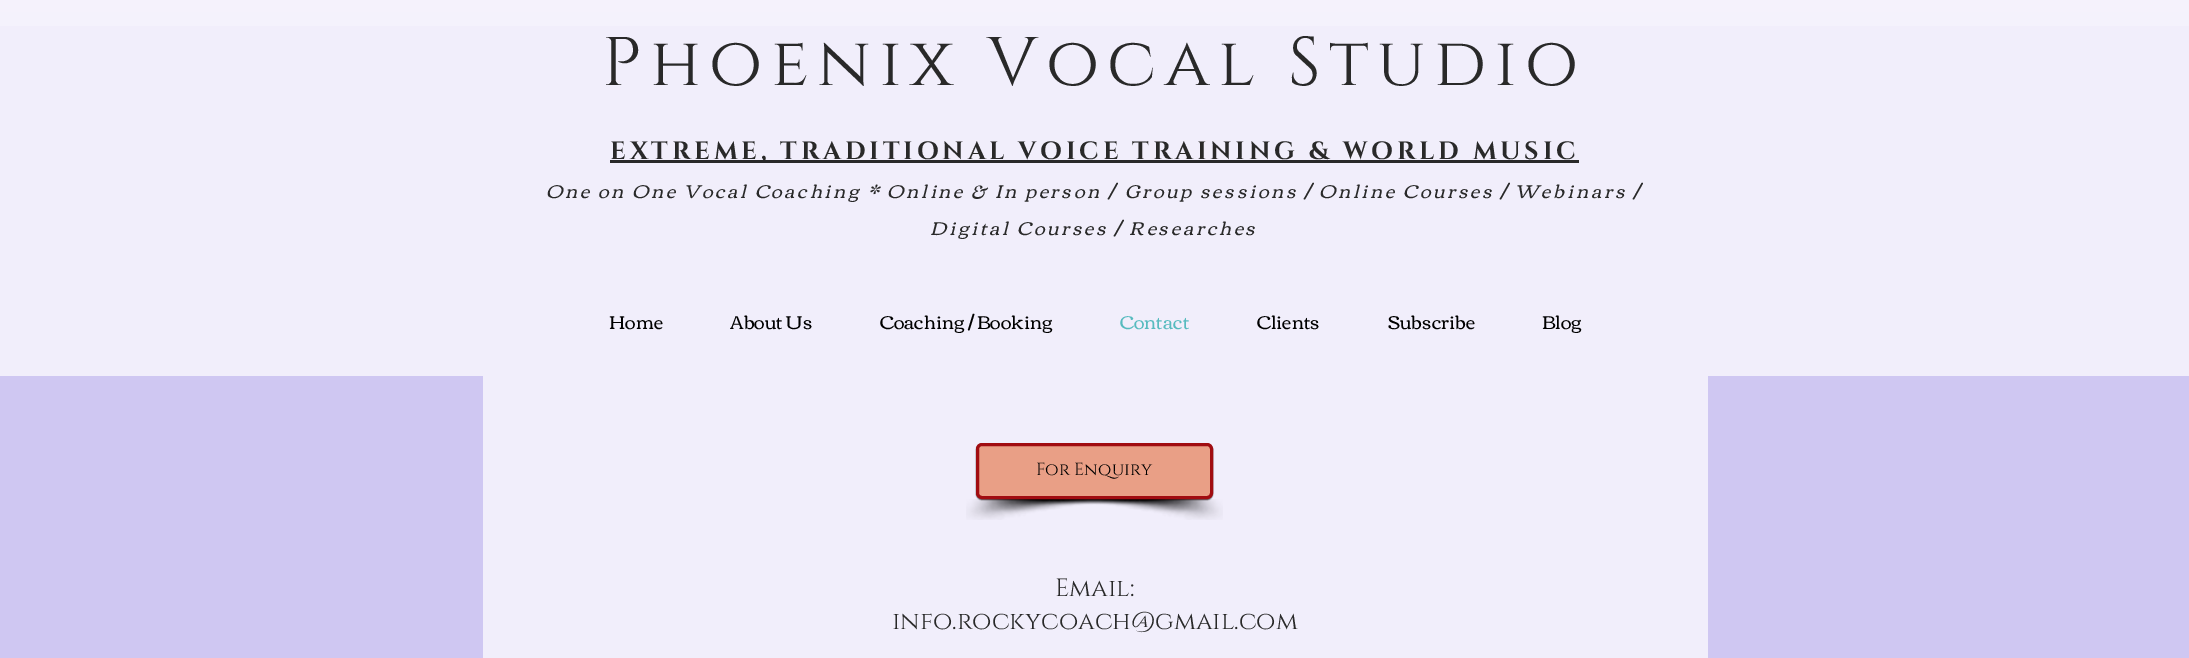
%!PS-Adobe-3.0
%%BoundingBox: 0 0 2189 658
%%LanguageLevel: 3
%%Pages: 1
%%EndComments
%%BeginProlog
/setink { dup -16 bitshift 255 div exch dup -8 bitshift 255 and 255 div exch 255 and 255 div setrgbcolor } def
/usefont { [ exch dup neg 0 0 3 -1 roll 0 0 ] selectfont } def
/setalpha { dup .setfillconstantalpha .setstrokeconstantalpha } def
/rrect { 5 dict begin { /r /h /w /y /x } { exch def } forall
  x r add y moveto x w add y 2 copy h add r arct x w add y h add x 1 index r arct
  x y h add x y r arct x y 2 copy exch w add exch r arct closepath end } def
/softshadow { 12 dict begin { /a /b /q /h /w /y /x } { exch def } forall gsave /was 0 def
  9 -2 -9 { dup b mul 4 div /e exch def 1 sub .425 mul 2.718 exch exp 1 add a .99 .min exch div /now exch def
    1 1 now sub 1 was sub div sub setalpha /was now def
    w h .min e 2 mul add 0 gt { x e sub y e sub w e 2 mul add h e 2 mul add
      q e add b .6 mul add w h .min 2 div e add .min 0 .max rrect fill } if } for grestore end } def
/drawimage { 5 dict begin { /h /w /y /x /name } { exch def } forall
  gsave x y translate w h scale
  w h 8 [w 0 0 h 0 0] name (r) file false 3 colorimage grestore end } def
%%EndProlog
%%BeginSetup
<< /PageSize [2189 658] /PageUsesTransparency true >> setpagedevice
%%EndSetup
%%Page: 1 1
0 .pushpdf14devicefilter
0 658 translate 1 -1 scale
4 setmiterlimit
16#CFC7F2 setink
0 0 2189 658 rectfill
16#F1EEFB setink
0 0 2189 376 rectfill
(img1.raw) 0 0 2189 26 drawimage
/Cinzel-Regular 68.75 usefont
16#292929 setink
602 85 moveto 8.25 0 (Phoenix Vocal Studio) ashow
610 160 969 3 rectfill
/Cinzel-Bold 25 usefont
610 159 moveto 3.75 0 (EXTREME, TRADITIONAL VOICE TRAINING & WORLD MUSIC) ashow
/Corben-Italic 18.75 usefont
546 198 moveto 2.8 0 (One on One Vocal Coaching * Online & In person /) ashow
1125 198 moveto 2.8 0 (Group sessions / Online Courses / Webinars /) ashow
930 235 moveto 2.8 0 (Digital Courses / Researches) ashow
/Corben-Regular 18.75 usefont
16#000000 setink
[
    [(Home) 609 329]
    [(About Us) 730 329]
    [(Coaching / Booking) 880 329]
] { aload pop moveto show } forall
16#57BBBF setink
1120 329 moveto (Contact) show
16#000000 setink
[
    [(Clients) 1257 329]
    [(Subscribe) 1388 329]
    [(Blog) 1542 329]
] { aload pop moveto show } forall
16#F1EEFB setink
483 376 1225 282 rectfill
(img2.raw) 966 499 186 21 drawimage
(img3.raw) 1056 499 167 21 drawimage
16#000000 setink
976 444 237 56 6 0.5 0.6 softshadow
16#E99F86 setink
977.5 444.5 234 53 4.5 rrect gsave fill grestore
16#A10C11 setink
3 setlinewidth
stroke
/Cinzel-Regular 17.5 usefont
16#000000 setink
1036 475 moveto (For Enquiry) show
/Cinzel-Regular 25 usefont
16#292929 setink
1055 596 moveto (Email:) show
892 629 moveto (info.rockycoach@gmail.com) show
.poppdf14devicefilter showpage
%%EOF
